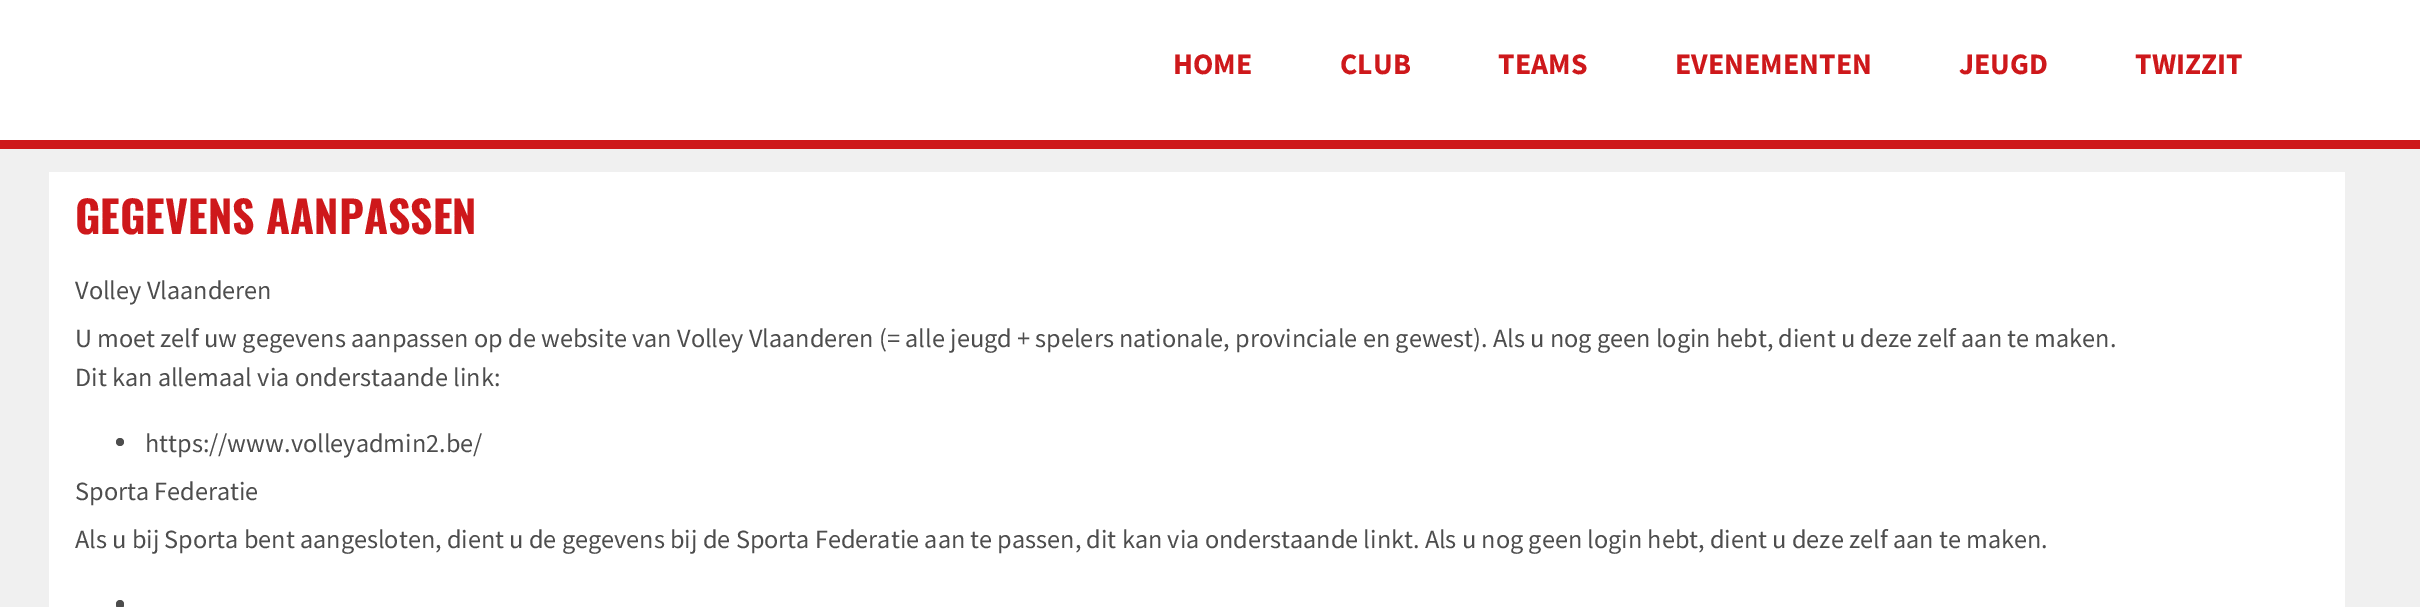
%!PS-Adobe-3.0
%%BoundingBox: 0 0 2420 607
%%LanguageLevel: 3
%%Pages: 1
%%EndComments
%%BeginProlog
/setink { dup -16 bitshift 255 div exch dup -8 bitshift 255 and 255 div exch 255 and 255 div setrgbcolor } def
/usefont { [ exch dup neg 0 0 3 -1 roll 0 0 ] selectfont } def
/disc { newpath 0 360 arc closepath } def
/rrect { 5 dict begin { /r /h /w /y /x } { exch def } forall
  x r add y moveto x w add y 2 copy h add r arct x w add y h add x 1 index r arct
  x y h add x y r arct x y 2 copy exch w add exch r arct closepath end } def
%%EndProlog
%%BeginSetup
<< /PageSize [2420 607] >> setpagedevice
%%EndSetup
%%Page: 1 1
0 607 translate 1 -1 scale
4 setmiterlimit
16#F0F0F0 setink
0 0 2420 607 rectfill
16#FFFFFF setink
0 0 2420 140 rectfill
16#CE181B setink
0 140 2420 9 rectfill
/SourceSansPro-Bold 29.75 usefont
[
    [(HOME) 1173 74]
    [(CLUB) 1340 74]
    [(TEAMS) 1498 74]
    [(EVENEMENTEN) 1675 74]
    [(JEUGD) 1959 74]
    [(TWIZZIT) 2135 74]
] { aload pop moveto show } forall
16#FFFFFF setink
49 172 2296 435 rectfill
/Oswald-Bold 43.75 usefont
16#CE181B setink
75 234 moveto (GEGEVENS AANPASSEN) show
/SourceSansPro-Regular 26.25 usefont
16#4D4D4D setink
[
    [(Volley Vlaanderen) 75 299]
    [(U moet zelf uw gegevens aanpassen op de website van Volley Vlaanderen \(= alle jeugd + spelers nationale, provinciale en gewest\). Als u nog geen login hebt, dient u deze zelf aan te maken.) 75 347]
    [(Dit kan allemaal via onderstaande link:) 75 386]
] { aload pop moveto show } forall
120 442 4 disc fill
[
    [(https://www.volleyadmin2.be/) 145 452]
    [(Sporta Federatie) 75 500]
    [(Als u bij Sporta bent aangesloten, dient u de gegevens bij de Sporta Federatie aan te passen, dit kan via onderstaande linkt. Als u nog geen login hebt, dient u deze zelf aan te maken.) 75 548]
] { aload pop moveto show } forall
116 600 8 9 4 rrect fill
showpage
%%EOF
